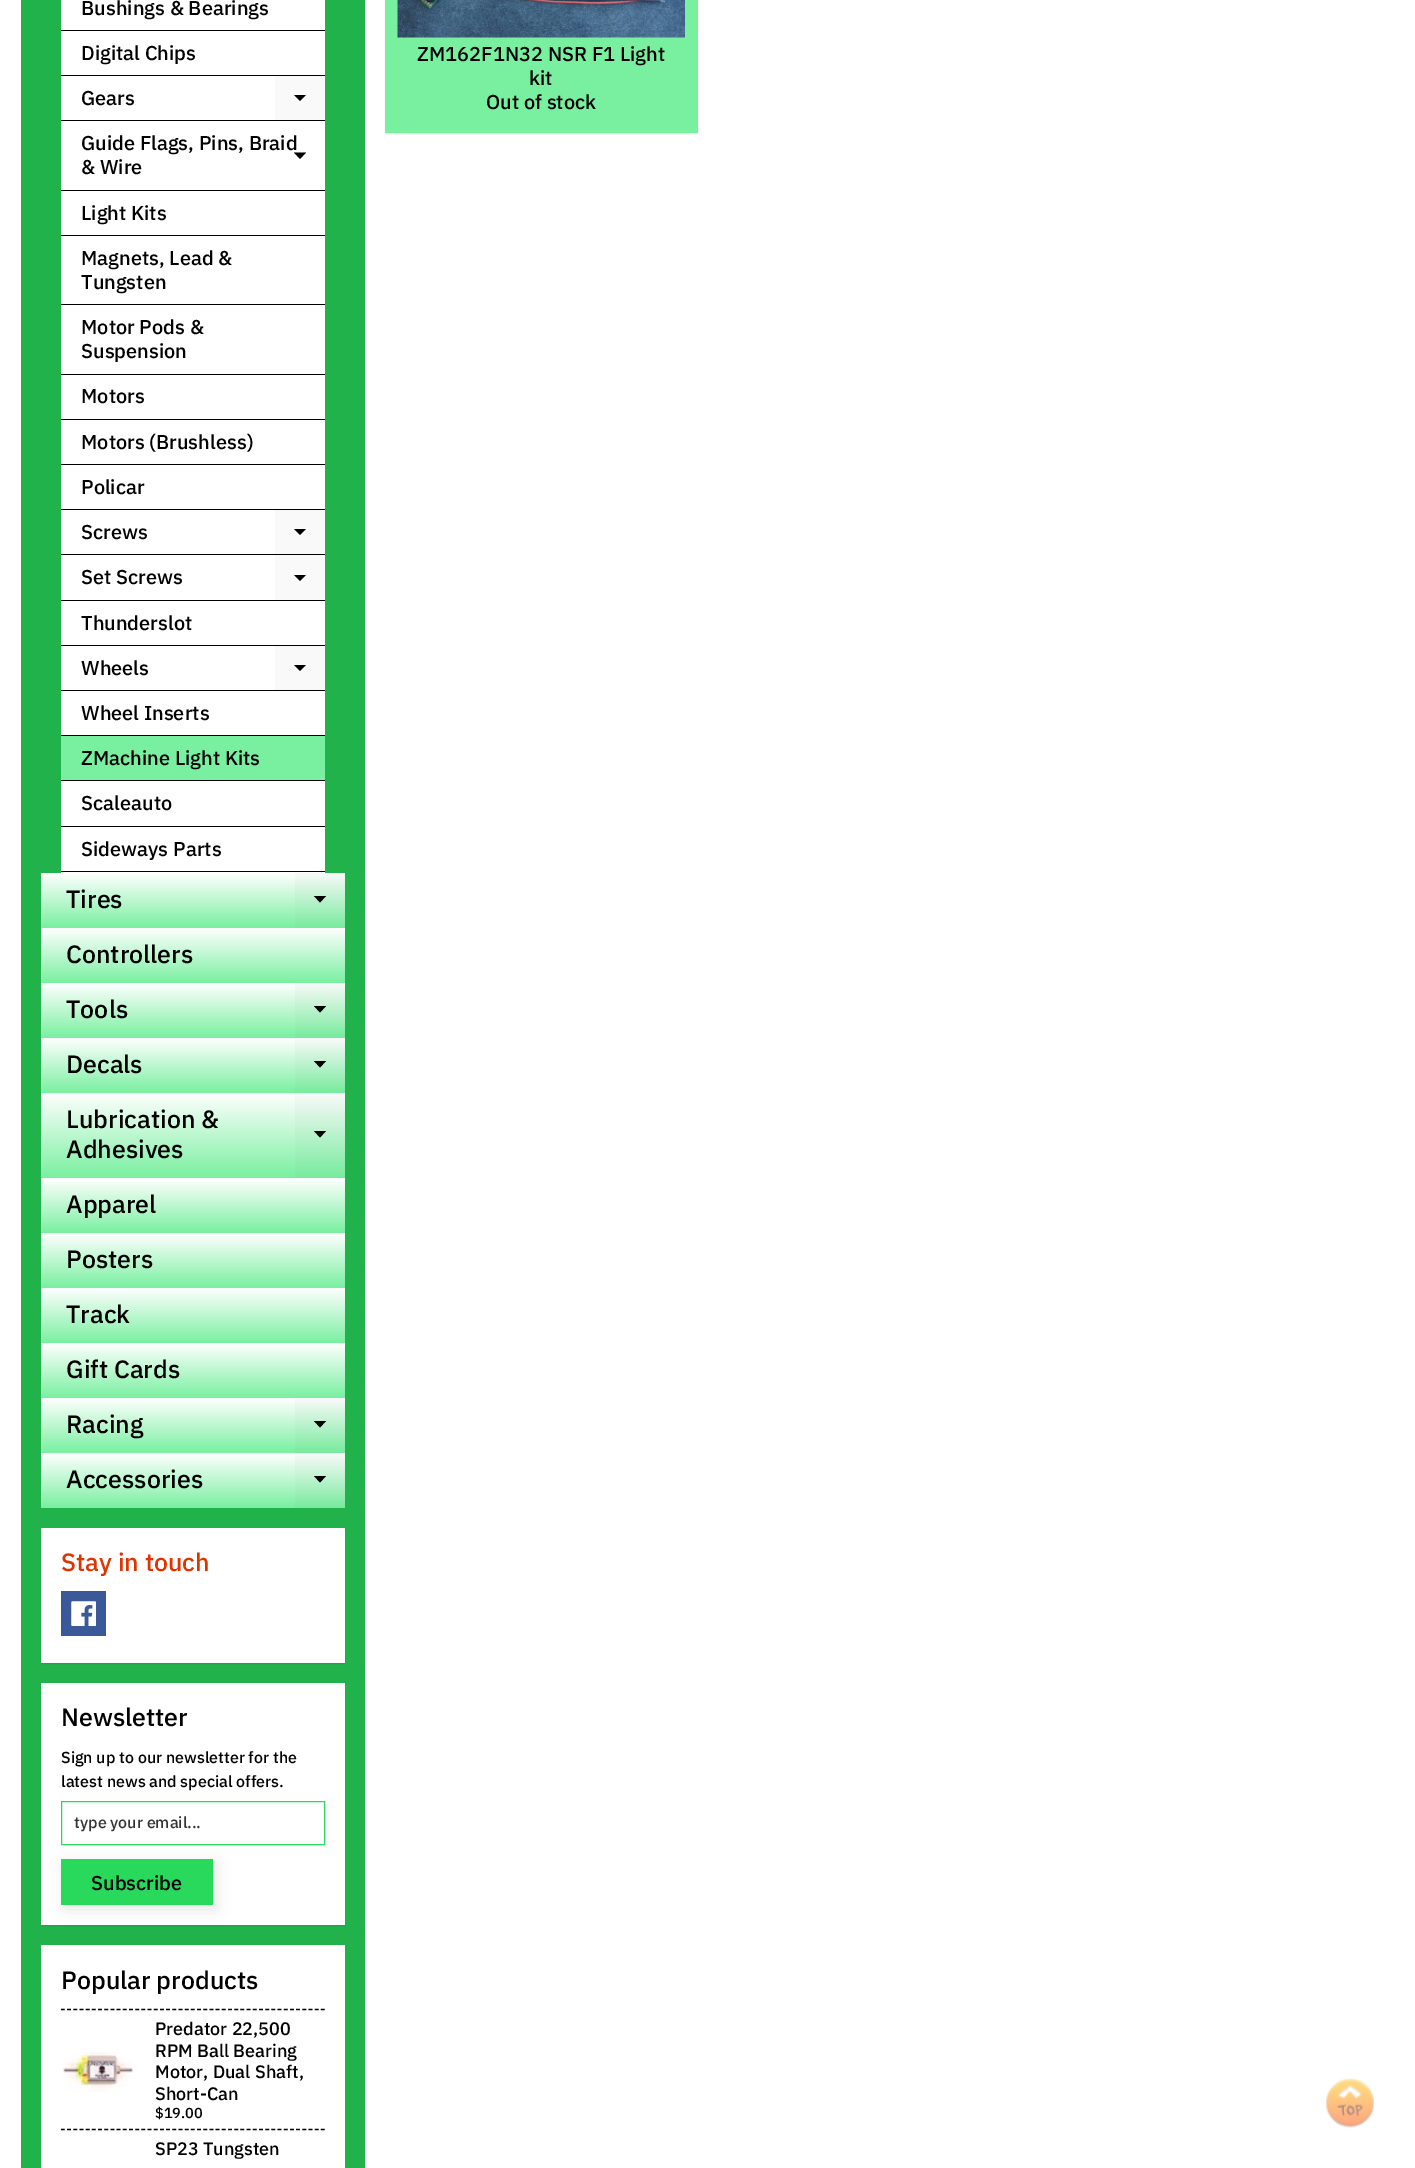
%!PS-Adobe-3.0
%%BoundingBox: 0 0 1415 2168
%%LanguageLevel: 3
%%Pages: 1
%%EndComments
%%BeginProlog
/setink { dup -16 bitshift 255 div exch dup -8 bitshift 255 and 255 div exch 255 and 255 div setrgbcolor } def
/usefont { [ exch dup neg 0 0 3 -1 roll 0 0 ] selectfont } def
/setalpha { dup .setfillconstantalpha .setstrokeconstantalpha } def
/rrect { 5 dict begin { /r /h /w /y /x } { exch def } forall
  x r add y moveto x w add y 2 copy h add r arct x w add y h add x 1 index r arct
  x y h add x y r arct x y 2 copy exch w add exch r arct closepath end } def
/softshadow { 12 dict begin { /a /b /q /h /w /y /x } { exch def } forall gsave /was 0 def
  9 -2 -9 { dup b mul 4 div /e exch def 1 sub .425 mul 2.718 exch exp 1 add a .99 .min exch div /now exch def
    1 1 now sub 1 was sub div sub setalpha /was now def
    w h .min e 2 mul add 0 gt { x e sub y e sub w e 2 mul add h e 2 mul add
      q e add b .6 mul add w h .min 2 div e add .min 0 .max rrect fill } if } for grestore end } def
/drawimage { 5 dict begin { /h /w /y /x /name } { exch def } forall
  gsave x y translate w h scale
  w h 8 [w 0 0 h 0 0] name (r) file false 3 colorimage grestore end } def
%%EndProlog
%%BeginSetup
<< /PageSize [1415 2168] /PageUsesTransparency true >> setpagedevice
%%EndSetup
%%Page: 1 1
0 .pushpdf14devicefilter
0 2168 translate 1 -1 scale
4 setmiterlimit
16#FFFFFF setink
0 0 1415 2168 rectfill
[
    [21 0 344 2168 16#22B24B]
    [61 0 264 873 16#FFFFFF]
    [61 30 264 1 16#000000]
] { aload pop setink rectfill } forall
/IBMPlexSans-Medium 20 usefont
81 15 moveto (Bushings & Bearings) show
61 75 264 1 rectfill
81 60 moveto (Digital Chips) show
61 120 264 1 rectfill
81 105 moveto (Gears) show
16#F9F9F9 setink
275 76 50 44 rectfill
16#000000 setink
294 95 moveto 306 95 lineto 300 101 lineto closepath fill
61 190 264 1 rectfill
81 150 moveto (Guide Flags, Pins, Braid) show
294 152.5 moveto 306 152.5 lineto 300 159 lineto closepath fill
81 174 moveto (& Wire) show
61 235 264 1 rectfill
81 220 moveto (Light Kits) show
61 304 264 1 rectfill
81 265 moveto (Magnets, Lead &) show
81 289 moveto (Tungsten) show
61 374 264 1 rectfill
81 334 moveto (Motor Pods &) show
81 358 moveto (Suspension) show
61 419 264 1 rectfill
81 403 moveto (Motors) show
61 464 264 1 rectfill
81 449 moveto (Motors \(Brushless\)) show
61 509 264 1 rectfill
81 494 moveto (Policar) show
61 554 264 1 rectfill
81 539 moveto (Screws) show
16#F9F9F9 setink
275 510 50 44 rectfill
16#000000 setink
294 529 moveto 306 529 lineto 300 535 lineto closepath fill
61 600 264 1 rectfill
81 584 moveto (Set Screws) show
16#F9F9F9 setink
275 555 50 45 rectfill
16#000000 setink
294 575 moveto 306 575 lineto 300 581 lineto closepath fill
61 645 264 1 rectfill
81 630 moveto (Thunderslot) show
61 690 264 1 rectfill
81 675 moveto (Wheels) show
16#F9F9F9 setink
275 646 50 44 rectfill
16#000000 setink
294 665 moveto 306 665 lineto 300 671 lineto closepath fill
61 735 264 1 rectfill
81 720 moveto (Wheel Inserts) show
16#79F0A0 setink
61 736 264 44 rectfill
16#000000 setink
61 780 264 1 rectfill
81 765 moveto (ZMachine Light Kits) show
61 826 264 1 rectfill
81 810 moveto (Scaleauto) show
61 871 264 1 rectfill
81 856 moveto (Sideways Parts) show
gsave 41 873 moveto 295 873 lineto 295 928 lineto 41 928 lineto closepath clip newpath
<< /ShadingType 2 /ColorSpace /DeviceRGB /Coords [193 873 193 928] /Extend [true true] /Function << /FunctionType 2 /Domain [0 1] /C0 [1 1 1] /C1 [0.475 0.941 0.627] /N 1 >> >> shfill grestore
gsave 295 873 moveto 345 873 lineto 345 928 lineto 295 928 lineto closepath clip newpath
<< /ShadingType 2 /ColorSpace /DeviceRGB /Coords [193 873 193 928] /Extend [true true] /Function << /FunctionType 2 /Domain [0 1] /C0 [0.98 0.98 0.98] /C1 [0.467 0.922 0.616] /N 1 >> >> shfill grestore
/IBMPlexSans-Medium 25 usefont
66 908 moveto (Tires) show
314 896 moveto 326 896 lineto 320 902.5 lineto closepath fill
gsave 41 928 moveto 345 928 lineto 345 983 lineto 41 983 lineto closepath clip newpath
<< /ShadingType 2 /ColorSpace /DeviceRGB /Coords [193 928 193 983] /Extend [true true] /Function << /FunctionType 2 /Domain [0 1] /C0 [1 1 1] /C1 [0.475 0.941 0.627] /N 1 >> >> shfill grestore
66 963 moveto (Controllers) show
gsave 41 983 moveto 295 983 lineto 295 1038 lineto 41 1038 lineto closepath clip newpath
<< /ShadingType 2 /ColorSpace /DeviceRGB /Coords [193 983 193 1038] /Extend [true true] /Function << /FunctionType 2 /Domain [0 1] /C0 [1 1 1] /C1 [0.475 0.941 0.627] /N 1 >> >> shfill grestore
gsave 295 983 moveto 345 983 lineto 345 1038 lineto 295 1038 lineto closepath clip newpath
<< /ShadingType 2 /ColorSpace /DeviceRGB /Coords [193 983 193 1038] /Extend [true true] /Function << /FunctionType 2 /Domain [0 1] /C0 [0.98 0.98 0.98] /C1 [0.467 0.922 0.616] /N 1 >> >> shfill grestore
66 1018 moveto (Tools) show
314 1006 moveto 326 1006 lineto 320 1012.5 lineto closepath fill
gsave 41 1038 moveto 295 1038 lineto 295 1093 lineto 41 1093 lineto closepath clip newpath
<< /ShadingType 2 /ColorSpace /DeviceRGB /Coords [193 1038 193 1093] /Extend [true true] /Function << /FunctionType 2 /Domain [0 1] /C0 [1 1 1] /C1 [0.475 0.941 0.627] /N 1 >> >> shfill grestore
gsave 295 1038 moveto 345 1038 lineto 345 1093 lineto 295 1093 lineto closepath clip newpath
<< /ShadingType 2 /ColorSpace /DeviceRGB /Coords [193 1038 193 1093] /Extend [true true] /Function << /FunctionType 2 /Domain [0 1] /C0 [0.98 0.98 0.98] /C1 [0.467 0.922 0.616] /N 1 >> >> shfill grestore
66 1073 moveto (Decals) show
314 1061 moveto 326 1061 lineto 320 1067.5 lineto closepath fill
gsave 41 1093 moveto 295 1093 lineto 295 1178 lineto 41 1178 lineto closepath clip newpath
<< /ShadingType 2 /ColorSpace /DeviceRGB /Coords [193 1093 193 1178] /Extend [true true] /Function << /FunctionType 2 /Domain [0 1] /C0 [1 1 1] /C1 [0.475 0.941 0.627] /N 1 >> >> shfill grestore
gsave 295 1093 moveto 345 1093 lineto 345 1178 lineto 295 1178 lineto closepath clip newpath
<< /ShadingType 2 /ColorSpace /DeviceRGB /Coords [193 1093 193 1178] /Extend [true true] /Function << /FunctionType 2 /Domain [0 1] /C0 [0.98 0.98 0.98] /C1 [0.467 0.922 0.616] /N 1 >> >> shfill grestore
66 1128 moveto (Lubrication &) show
314 1131 moveto 326 1131 lineto 320 1137.5 lineto closepath fill
66 1158 moveto (Adhesives) show
gsave 41 1178 moveto 345 1178 lineto 345 1233 lineto 41 1233 lineto closepath clip newpath
<< /ShadingType 2 /ColorSpace /DeviceRGB /Coords [193 1178 193 1233] /Extend [true true] /Function << /FunctionType 2 /Domain [0 1] /C0 [1 1 1] /C1 [0.475 0.941 0.627] /N 1 >> >> shfill grestore
66 1213 moveto (Apparel) show
gsave 41 1233 moveto 345 1233 lineto 345 1288 lineto 41 1288 lineto closepath clip newpath
<< /ShadingType 2 /ColorSpace /DeviceRGB /Coords [193 1233 193 1288] /Extend [true true] /Function << /FunctionType 2 /Domain [0 1] /C0 [1 1 1] /C1 [0.475 0.941 0.627] /N 1 >> >> shfill grestore
66 1268 moveto (Posters) show
gsave 41 1288 moveto 345 1288 lineto 345 1343 lineto 41 1343 lineto closepath clip newpath
<< /ShadingType 2 /ColorSpace /DeviceRGB /Coords [193 1288 193 1343] /Extend [true true] /Function << /FunctionType 2 /Domain [0 1] /C0 [1 1 1] /C1 [0.475 0.941 0.627] /N 1 >> >> shfill grestore
66 1323 moveto (Track) show
gsave 41 1343 moveto 345 1343 lineto 345 1398 lineto 41 1398 lineto closepath clip newpath
<< /ShadingType 2 /ColorSpace /DeviceRGB /Coords [193 1343 193 1398] /Extend [true true] /Function << /FunctionType 2 /Domain [0 1] /C0 [1 1 1] /C1 [0.475 0.941 0.627] /N 1 >> >> shfill grestore
66 1378 moveto (Gift Cards) show
gsave 41 1398 moveto 295 1398 lineto 295 1453 lineto 41 1453 lineto closepath clip newpath
<< /ShadingType 2 /ColorSpace /DeviceRGB /Coords [193 1398 193 1453] /Extend [true true] /Function << /FunctionType 2 /Domain [0 1] /C0 [1 1 1] /C1 [0.475 0.941 0.627] /N 1 >> >> shfill grestore
gsave 295 1398 moveto 345 1398 lineto 345 1453 lineto 295 1453 lineto closepath clip newpath
<< /ShadingType 2 /ColorSpace /DeviceRGB /Coords [193 1398 193 1453] /Extend [true true] /Function << /FunctionType 2 /Domain [0 1] /C0 [0.98 0.98 0.98] /C1 [0.467 0.922 0.616] /N 1 >> >> shfill grestore
66 1433 moveto (Racing) show
314 1421 moveto 326 1421 lineto 320 1427.5 lineto closepath fill
gsave 41 1453 moveto 295 1453 lineto 295 1508 lineto 41 1508 lineto closepath clip newpath
<< /ShadingType 2 /ColorSpace /DeviceRGB /Coords [193 1453 193 1508] /Extend [true true] /Function << /FunctionType 2 /Domain [0 1] /C0 [1 1 1] /C1 [0.475 0.941 0.627] /N 1 >> >> shfill grestore
gsave 295 1453 moveto 345 1453 lineto 345 1508 lineto 295 1508 lineto closepath clip newpath
<< /ShadingType 2 /ColorSpace /DeviceRGB /Coords [193 1453 193 1508] /Extend [true true] /Function << /FunctionType 2 /Domain [0 1] /C0 [0.98 0.98 0.98] /C1 [0.467 0.922 0.616] /N 1 >> >> shfill grestore
66 1488 moveto (Accessories) show
314 1476 moveto 326 1476 lineto 320 1482.5 lineto closepath fill
41 1529 304 135 0 0.5 0.1 softshadow
16#FFFFFF setink
41 1528 304 135 rectfill
16#DE3500 setink
61 1571 moveto (Stay in touch) show
16#3B5998 setink
61 1591 45 45 rectfill
(img1.raw) 71 1601 25 25 drawimage
16#000000 setink
41 1684 304 242 0 0.5 0.1 softshadow
16#FFFFFF setink
41 1683 304 242 rectfill
16#000000 setink
61 1726 moveto (Newsletter) show
/IBMPlexSans-Medium 16 usefont
61 1763 moveto (Sign up to our newsletter for the) show
61 1787 moveto (latest news and special offers.) show
16#29D95B setink
61.5 1801.5 263 43 rectstroke
16#333333 setink
74 1828 moveto (type your email...) show
16#000000 setink
65 1863 151 46 0 7.5 0.1 softshadow
16#29D95B setink
61 1859 152 46 rectfill
/IBMPlexSans-Medium 20 usefont
16#000000 setink
91 1890 moveto (Subscribe) show
16#FFFFFF setink
41 1945 304 223 rectfill
/IBMPlexSans-Medium 25 usefont
16#000000 setink
61 1989 moveto (Popular products) show
1.2 setlinewidth
[3.75 2.44] 0 setdash
61 2009.5 moveto 325 2009.5 lineto stroke
(img2.raw) 63 2052 73 40 drawimage
/IBMPlexSans-Medium 18 usefont
[
    [(Predator 22,500) 155 2035]
    [(RPM Ball Bearing) 155 2057]
    [(Motor, Dual Shaft,) 155 2078]
    [(Short-Can) 155 2100]
] { aload pop moveto show } forall
/IBMPlexSans-Medium 14.5 usefont
155 2118 moveto ($19.00) show
61 2129.5 moveto 325 2129.5 lineto stroke
/IBMPlexSans-Medium 18 usefont
155 2155 moveto (SP23 Tungsten) show
385 -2 313 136 0 0.5 0.1 softshadow
16#79F0A0 setink
385 0 313 133 rectfill
(img3.raw) 397 0 288 38 drawimage
/IBMPlexSans-Medium 20 usefont
16#000000 setink
[
    [(ZM162F1N32 NSR F1 Light) 417 61]
    [(kit) 529 85]
    [(Out of stock) 486 109]
] { aload pop moveto show } forall
(img4.raw) 1326 2078 48 50 drawimage
.poppdf14devicefilter showpage
%%EOF
